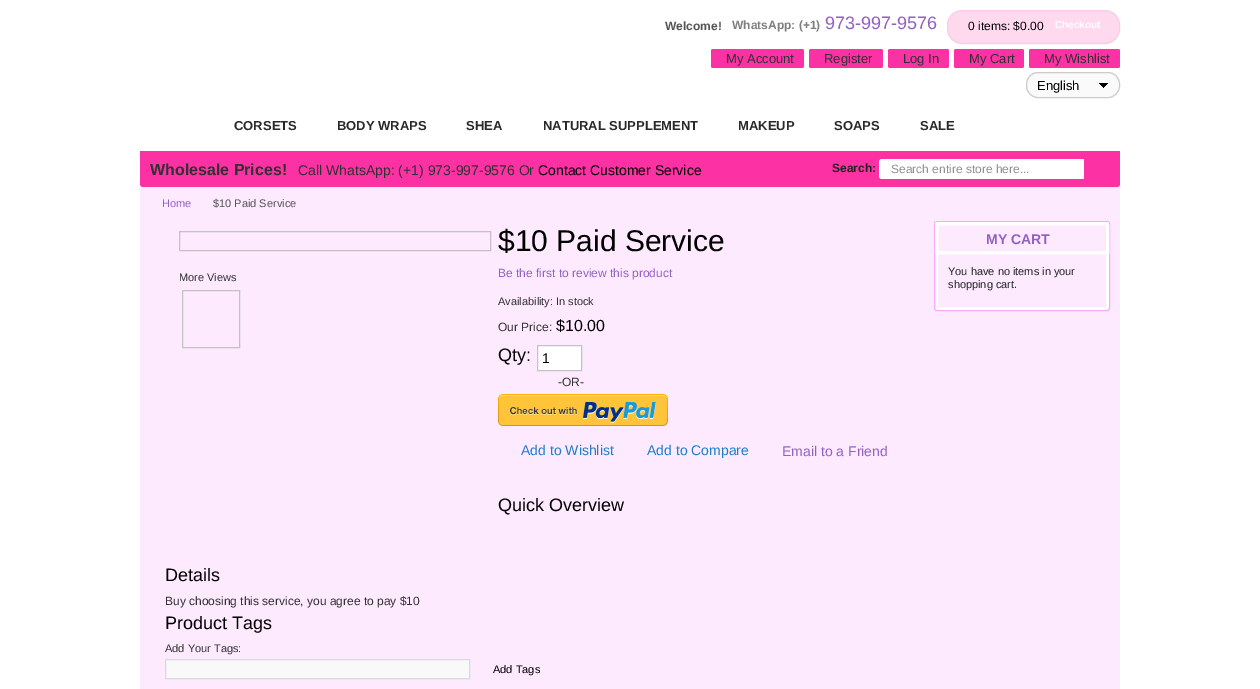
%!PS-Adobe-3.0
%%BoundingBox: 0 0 1260 689
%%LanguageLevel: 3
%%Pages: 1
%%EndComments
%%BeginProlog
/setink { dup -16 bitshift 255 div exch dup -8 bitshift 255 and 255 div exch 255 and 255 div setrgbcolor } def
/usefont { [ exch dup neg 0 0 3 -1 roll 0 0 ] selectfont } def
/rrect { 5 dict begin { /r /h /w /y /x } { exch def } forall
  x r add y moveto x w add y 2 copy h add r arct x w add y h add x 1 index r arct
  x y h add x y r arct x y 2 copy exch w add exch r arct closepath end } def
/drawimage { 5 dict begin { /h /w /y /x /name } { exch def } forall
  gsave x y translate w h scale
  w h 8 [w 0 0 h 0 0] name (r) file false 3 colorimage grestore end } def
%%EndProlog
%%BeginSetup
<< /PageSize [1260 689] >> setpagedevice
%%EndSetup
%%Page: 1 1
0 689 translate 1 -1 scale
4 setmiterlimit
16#FFFFFF setink
0 0 1260 689 rectfill
/LiberationSans-Bold 12 usefont
16#555555 setink
665 30 moveto (Welcome!) show
16#7F7F7F setink
732 29 moveto (WhatsApp: \(+1\)) show
/LiberationSans-Regular 18 usefont
16#9361C5 setink
825 29 moveto (973-997-9576) show
16#FFDAEF setink
947.5 10.5 172 33 14.5 rrect gsave fill grestore
16#FACBE6 setink
stroke
/LiberationSans-Regular 12 usefont
16#000000 setink
968 30 moveto (0 items: $0.00) show
/LiberationSans-Bold 10 usefont
16#FFFFFF setink
1055 28 moveto (Checkout) show
16#FC31A4 setink
711 49 93 19 2 rrect fill
/LiberationSans-Regular 13 usefont
16#313131 setink
726 63 moveto (My Account) show
16#FC31A4 setink
809 49 74 19 2 rrect fill
16#313131 setink
824 63 moveto (Register) show
16#FC31A4 setink
888 49 61 19 2 rrect fill
16#313131 setink
903 63 moveto (Log In) show
16#FC31A4 setink
954 49 70 19 2 rrect fill
16#313131 setink
969 63 moveto (My Cart) show
16#FC31A4 setink
1029 49 91 19 2 rrect fill
16#313131 setink
1044 63 moveto (My Wishlist) show
16#FAFAFA setink
1026 72 94 26 12 rrect fill
(img1.raw) 1099 83 9 5 drawimage
16#CCCCCC setink
1026.5 72.5 93 25 11.5 rrect stroke
16#000000 setink
1037 90 moveto (English) show
/LiberationSans-Bold 13 usefont
16#2A2A2A setink
[
    [(CORSETS) 234 130]
    [(BODY WRAPS) 337 130]
    [(SHEA) 466 130]
    [(NATURAL SUPPLEMENT) 543 130]
    [(MAKEUP) 738 130]
    [(SOAPS) 834 130]
    [(SALE) 920 130]
] { aload pop moveto show } forall
16#FC31A4 setink
140 151 moveto 1120 151 lineto 1120 184 lineto 1120 185.5 1118.5 187 1117 187 curveto 143 187 lineto 141.5 187 140 185.5 140 184 curveto closepath fill
/LiberationSans-Bold 16 usefont
16#313131 setink
150 175 moveto (Wholesale Prices!) show
/LiberationSans-Regular 14 usefont
298 175 moveto (Call WhatsApp: \(+1\) 973-997-9576 Or) show
16#000000 setink
538 175 moveto (Contact Customer Service) show
/LiberationSans-Bold 12 usefont
16#222222 setink
832 172 moveto (Search:) show
16#FFFFFF setink
882 159 moveto 1084 159 lineto 1084 179 lineto 882 179 lineto 880.5 179 879 177.5 879 176 curveto 879 162 lineto 879 160.5 880.5 159 882 159 curveto closepath fill
/LiberationSans-Regular 12 usefont
16#919191 setink
891 173 moveto (Search entire store here...) show
16#FEEAFF setink
140 187 980 502 rectfill
/LiberationSans-Regular 11 usefont
16#9361C5 setink
162 207 moveto (Home) show
16#555555 setink
213 207 moveto ($10 Paid Service) show
16#C3C3C3 setink
179.5 231.5 311 19 rectstroke
16#313131 setink
179 281 moveto (More Views) show
16#C3C3C3 setink
182.5 290.5 57 57 rectstroke
/LiberationSans-Regular 30 usefont
16#000000 setink
498 251 moveto ($10 Paid Service) show
/LiberationSans-Regular 12 usefont
16#9361C5 setink
498 277 moveto (Be the first to review this product) show
/LiberationSans-Regular 11 usefont
16#313131 setink
498 305 moveto (Availability: In stock) show
/LiberationSans-Regular 12 usefont
498 331 moveto (Our Price:) show
/LiberationSans-Regular 16 usefont
16#000000 setink
556 331 moveto ($10.00) show
/LiberationSans-Regular 18 usefont
498 361 moveto (Qty:) show
16#FFFFFF setink
537.5 345.5 moveto 581.5 345.5 lineto 581.5 370.5 lineto 537.5 370.5 lineto closepath gsave fill grestore
16#C3C3C3 setink
stroke
/LiberationSans-Regular 14 usefont
16#000000 setink
542 363 moveto (1) show
/LiberationSans-Regular 12 usefont
16#313131 setink
558 386 moveto (-OR-) show
(img2.raw) 498 394 170 32 drawimage
/LiberationSans-Regular 14 usefont
16#1E7EC8 setink
521 455 moveto (Add to Wishlist) show
647 455 moveto (Add to Compare) show
16#9361C5 setink
782 456 moveto (Email to a Friend) show
/LiberationSans-Regular 18 usefont
16#000000 setink
498 511 moveto (Quick Overview) show
165 581 moveto (Details) show
/LiberationSans-Regular 12 usefont
16#313131 setink
165 605 moveto (Buy choosing this service, you agree to pay $10) show
/LiberationSans-Regular 18 usefont
16#000000 setink
165 629 moveto (Product Tags) show
/LiberationSans-Regular 11 usefont
16#313131 setink
165 652 moveto (Add Your Tags:) show
16#F9F9F9 setink
165.5 659.5 moveto 469.5 659.5 lineto 469.5 678.5 lineto 165.5 678.5 lineto closepath gsave fill grestore
16#DADADA setink
stroke
16#000000 setink
493 673 moveto (Add Tags) show
16#FFFFFF setink
3 setlinewidth
936.5 223.5 171 85 0.5 rrect stroke
16#F9A8FD setink
1 setlinewidth
934.5 221.5 175 89 2.5 rrect stroke
16#FFFFFF setink
3 setlinewidth
938 223.5 moveto 1106 223.5 lineto 1107 223.5 1107.5 224 1107.5 225 curveto 1107.5 252.5 lineto 936.5 252.5 lineto 936.5 225 lineto 936.5 224 937 223.5 938 223.5 curveto closepath stroke
938 223.5 moveto 1106 223.5 lineto 1107 223.5 1107.5 224 1107.5 225 curveto 1107.5 252.5 lineto 936.5 252.5 lineto 936.5 225 lineto 936.5 224 937 223.5 938 223.5 curveto closepath stroke
/LiberationSans-Bold 14 usefont
16#9361C5 setink
986 244 moveto (MY CART) show
/LiberationSans-Regular 11 usefont
16#222222 setink
948 275 moveto (You have no items in your) show
948 288 moveto (shopping cart.) show
showpage
%%EOF
